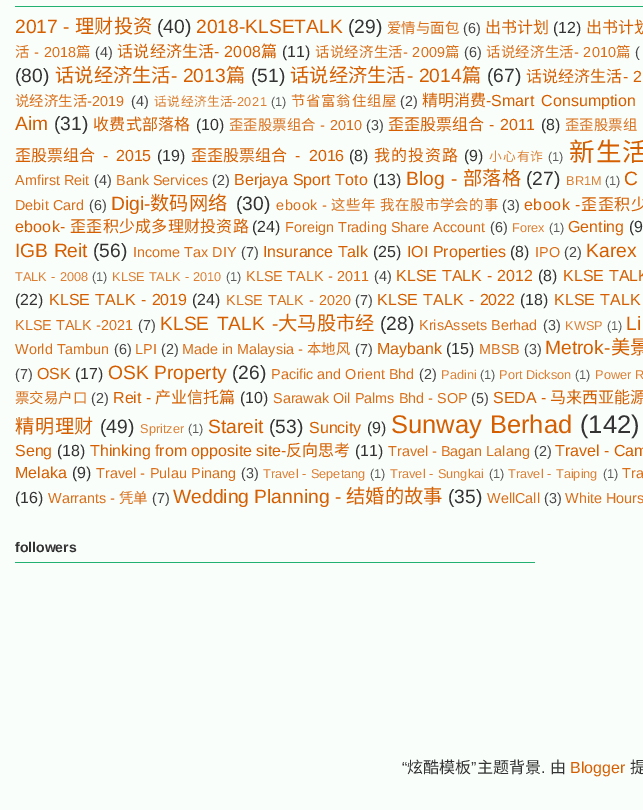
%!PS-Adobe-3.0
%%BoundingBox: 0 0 643 810
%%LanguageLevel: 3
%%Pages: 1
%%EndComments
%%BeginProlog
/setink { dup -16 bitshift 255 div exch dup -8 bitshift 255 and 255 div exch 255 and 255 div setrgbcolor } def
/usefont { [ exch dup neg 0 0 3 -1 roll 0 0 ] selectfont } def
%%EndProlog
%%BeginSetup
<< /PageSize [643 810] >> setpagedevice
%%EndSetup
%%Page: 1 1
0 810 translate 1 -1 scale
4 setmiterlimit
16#FAFEFB setink
0 0 643 810 rectfill
16#22B170 setink
15 6 628 1 rectfill
/LiberationSans-Regular 19.25 usefont
16#D55F00 setink
15 33 moveto (2017 -) show
/NotoSansCJKSC-Regular 19.25 usefont
75 33 moveto (理财投资) show
/LiberationSans-Regular 19.25 usefont
16#333333 setink
157 33 moveto (\(40\)) show
16#D55F00 setink
196 33 moveto (2018-KLSETALK) show
16#333333 setink
348 33 moveto (\(29\)) show
/NotoSansCJKSC-Regular 14.4 usefont
16#D96F19 setink
387 33 moveto (爱情与面包) show
/LiberationSans-Regular 14.4 usefont
16#474747 setink
463 33 moveto (\(6\)) show
/NotoSansCJKSC-Regular 16 usefont
16#D55F00 setink
485 33 moveto (出书计划) show
/LiberationSans-Regular 16 usefont
16#333333 setink
553 33 moveto (\(12\)) show
/NotoSansCJKSC-Regular 16 usefont
16#D55F00 setink
586 33 moveto (出书计划) show
/NotoSansCJKSC-Regular 14.4 usefont
16#D96F19 setink
15 57 moveto (活) show
/LiberationSans-Regular 14.4 usefont
34 57 moveto 1 0 32 (- 2018) widthshow
/NotoSansCJKSC-Regular 14.4 usefont
76 57 moveto (篇) show
/LiberationSans-Regular 14.4 usefont
16#474747 setink
95 57 moveto (\(4\)) show
/NotoSansCJKSC-Regular 16 usefont
16#D55F00 setink
117 57 moveto 0.25 0 (话说经济生活) ashow
/LiberationSans-Regular 16 usefont
214 57 moveto 0.25 0 (- 2008) ashow
/NotoSansCJKSC-Regular 16 usefont
261 57 moveto 0.25 0 (篇) ashow
/LiberationSans-Regular 16 usefont
16#333333 setink
282 57 moveto (\(11\)) show
/NotoSansCJKSC-Regular 14.4 usefont
16#D96F19 setink
315 57 moveto 0.25 0 (话说经济生活) ashow
/LiberationSans-Regular 14.4 usefont
403 57 moveto 0.25 0 (- 2009) ashow
/NotoSansCJKSC-Regular 14.4 usefont
445 57 moveto 0.25 0 (篇) ashow
/LiberationSans-Regular 14.4 usefont
16#474747 setink
464 57 moveto (\(6\)) show
/NotoSansCJKSC-Regular 14.4 usefont
16#D96F19 setink
486 57 moveto 0.25 0 (话说经济生活) ashow
/LiberationSans-Regular 14.4 usefont
574 57 moveto 0.25 0 (- 2010) ashow
/NotoSansCJKSC-Regular 14.4 usefont
616 57 moveto 0.25 0 (篇) ashow
/LiberationSans-Regular 14.4 usefont
16#474747 setink
635 57 moveto (\() show
/LiberationSans-Regular 19.25 usefont
16#333333 setink
15 82 moveto (\(80\)) show
/NotoSansCJKSC-Regular 19.25 usefont
16#D55F00 setink
55 82 moveto (话说经济生活) show
/LiberationSans-Regular 19.25 usefont
171 82 moveto (- 2013) show
/NotoSansCJKSC-Regular 19.25 usefont
226 82 moveto (篇) show
/LiberationSans-Regular 19.25 usefont
16#333333 setink
251 82 moveto (\(51\)) show
/NotoSansCJKSC-Regular 19.25 usefont
16#D55F00 setink
290 82 moveto (话说经济生活) show
/LiberationSans-Regular 19.25 usefont
407 82 moveto (- 2014) show
/NotoSansCJKSC-Regular 19.25 usefont
462 82 moveto (篇) show
/LiberationSans-Regular 19.25 usefont
16#333333 setink
487 82 moveto (\(67\)) show
/NotoSansCJKSC-Regular 16 usefont
16#D55F00 setink
526 82 moveto (话说经济生活) show
/LiberationSans-Regular 16 usefont
623 82 moveto (- 2) show
/NotoSansCJKSC-Regular 14.4 usefont
16#D96F19 setink
15 106 moveto (说经济生活) show
/LiberationSans-Regular 14.4 usefont
87 106 moveto (-2019) show
16#474747 setink
131 106 moveto (\(4\)) show
/NotoSansCJKSC-Regular 12.75 usefont
16#DC7F32 setink
154 106 moveto 0.5 0 (话说经济生活) ashow
/LiberationSans-Regular 12.75 usefont
232 106 moveto 0.5 0 (-2021) ashow
16#5B5C5B setink
271 106 moveto (\(1\)) show
/NotoSansCJKSC-Regular 14.4 usefont
16#D96F19 setink
291 106 moveto 0.75 0 (节省富翁住组屋) ashow
/LiberationSans-Regular 14.4 usefont
16#474747 setink
400 106 moveto (\(2\)) show
/NotoSansCJKSC-Regular 16 usefont
16#D55F00 setink
422 106 moveto (精明消费) show
/LiberationSans-Regular 16 usefont
486 106 moveto 3 0 32 (-Smart Consumption) widthshow
/LiberationSans-Regular 19.25 usefont
15 130 moveto (Aim) show
16#333333 setink
54 130 moveto (\(31\)) show
/NotoSansCJKSC-Regular 16 usefont
16#D55F00 setink
93 130 moveto 0.25 0 (收费式部落格) ashow
/LiberationSans-Regular 16 usefont
16#333333 setink
196 130 moveto (\(10\)) show
/NotoSansCJKSC-Regular 14.4 usefont
16#D96F19 setink
229 130 moveto (歪歪股票组合) show
/LiberationSans-Regular 14.4 usefont
320 130 moveto 1 0 32 (- 2010) widthshow
16#474747 setink
366 130 moveto (\(3\)) show
/NotoSansCJKSC-Regular 16 usefont
16#D55F00 setink
388 130 moveto (歪歪股票组合) show
/LiberationSans-Regular 16 usefont
489 130 moveto 1 0 32 (- 2011) widthshow
16#333333 setink
541 130 moveto (\(8\)) show
/NotoSansCJKSC-Regular 14.4 usefont
16#D96F19 setink
565 130 moveto (歪歪股票组) show
/NotoSansCJKSC-Regular 16 usefont
16#D55F00 setink
15 161 moveto (歪股票组合) show
/LiberationSans-Regular 16 usefont
103 161 moveto 3 0 32 (- 2015) widthshow
16#333333 setink
157 161 moveto (\(19\)) show
/NotoSansCJKSC-Regular 16 usefont
16#D55F00 setink
191 161 moveto (歪歪股票组合) show
/LiberationSans-Regular 16 usefont
295 161 moveto 4 0 32 (- 2016) widthshow
16#333333 setink
349 161 moveto (\(8\)) show
/NotoSansCJKSC-Regular 16 usefont
16#D55F00 setink
374 161 moveto 1 0 (我的投资路) ashow
/LiberationSans-Regular 16 usefont
16#333333 setink
464 161 moveto (\(9\)) show
/NotoSansCJKSC-Regular 12.75 usefont
16#DC7F32 setink
489 161 moveto 1 0 (小心有诈) ashow
/LiberationSans-Regular 12.75 usefont
16#5B5C5B setink
548 161 moveto (\(1\)) show
/NotoSansCJKSC-Regular 25.5 usefont
16#D55F00 setink
569 161 moveto 1 0 (新生活) ashow
/LiberationSans-Regular 14.4 usefont
16#D96F19 setink
15 185 moveto (Amfirst Reit) show
16#474747 setink
94 185 moveto (\(4\)) show
16#D96F19 setink
116 185 moveto (Bank Services) show
16#474747 setink
212 185 moveto (\(2\)) show
/LiberationSans-Regular 16 usefont
16#D55F00 setink
234 185 moveto (Berjaya Sport Toto) show
16#333333 setink
373 185 moveto (\(13\)) show
/LiberationSans-Regular 19.25 usefont
16#D55F00 setink
406 185 moveto 1 0 32 (Blog -) widthshow
/NotoSansCJKSC-Regular 19.25 usefont
463 185 moveto (部落格) show
/LiberationSans-Regular 19.25 usefont
16#333333 setink
526 185 moveto (\(27\)) show
/LiberationSans-Regular 12.75 usefont
16#DC7F32 setink
566 185 moveto (BR1M) show
16#5B5C5B setink
605 185 moveto (\(1\)) show
/LiberationSans-Regular 19.25 usefont
16#D55F00 setink
624 185 moveto (C) show
/LiberationSans-Regular 14.4 usefont
16#D96F19 setink
15 210 moveto (Debit Card) show
16#474747 setink
89 210 moveto (\(6\)) show
/LiberationSans-Regular 19.25 usefont
16#D55F00 setink
111 210 moveto (Digi-) show
/NotoSansCJKSC-Regular 19.25 usefont
150 210 moveto (数码网络) show
/LiberationSans-Regular 19.25 usefont
16#333333 setink
236 210 moveto (\(30\)) show
/LiberationSans-Regular 14.4 usefont
16#D96F19 setink
276 210 moveto 0.5 0 (ebook -) ashow
/NotoSansCJKSC-Regular 14.4 usefont
331 210 moveto 0.5 0 (这些年) ashow
380 210 moveto 0.5 0 (我在股市学会的事) ashow
/LiberationSans-Regular 14.4 usefont
16#474747 setink
502 210 moveto (\(3\)) show
/LiberationSans-Regular 16 usefont
16#D55F00 setink
524 210 moveto 0.5 0 (ebook -) ashow
/NotoSansCJKSC-Regular 16 usefont
581 210 moveto 0.5 0 (歪歪积少) ashow
/LiberationSans-Regular 16 usefont
15 232 moveto 0.25 0 (ebook-) ashow
/NotoSansCJKSC-Regular 16 usefont
70 232 moveto 0.25 0 (歪歪积少成多理财投资路) ashow
/LiberationSans-Regular 16 usefont
16#333333 setink
252 232 moveto (\(24\)) show
/LiberationSans-Regular 14.4 usefont
16#D96F19 setink
285 232 moveto (Foreign Trading Share Account) show
16#474747 setink
490 232 moveto (\(6\)) show
/LiberationSans-Regular 12.75 usefont
16#DC7F32 setink
512 232 moveto (Forex) show
16#5B5C5B setink
549 232 moveto (\(1\)) show
/LiberationSans-Regular 16 usefont
16#D55F00 setink
568 232 moveto (Genting) show
16#333333 setink
629 232 moveto (\(9) show
/LiberationSans-Regular 19.25 usefont
16#D55F00 setink
15 257 moveto (IGB Reit) show
16#333333 setink
93 257 moveto (\(56\)) show
/LiberationSans-Regular 14.4 usefont
16#D96F19 setink
133 257 moveto (Income Tax DIY) show
16#474747 setink
241 257 moveto (\(7\)) show
/LiberationSans-Regular 16 usefont
16#D55F00 setink
263 257 moveto (Insurance Talk) show
16#333333 setink
373 257 moveto (\(25\)) show
16#D55F00 setink
407 257 moveto (IOI Properties) show
16#333333 setink
510 257 moveto (\(8\)) show
/LiberationSans-Regular 14.4 usefont
16#D96F19 setink
535 257 moveto (IPO) show
16#474747 setink
564 257 moveto (\(2\)) show
/LiberationSans-Regular 19.25 usefont
16#D55F00 setink
586 257 moveto (Karex) show
/LiberationSans-Regular 12.75 usefont
16#DC7F32 setink
15 281 moveto 1 0 32 (TALK - 2008) widthshow
16#5B5C5B setink
92 281 moveto (\(1\)) show
16#DC7F32 setink
112 281 moveto 0.5 0 32 (KLSE TALK - 2010) widthshow
16#5B5C5B setink
226 281 moveto (\(1\)) show
/LiberationSans-Regular 14.4 usefont
16#D96F19 setink
246 281 moveto 0.5 0 32 (KLSE TALK - 2011) widthshow
16#474747 setink
374 281 moveto (\(4\)) show
/LiberationSans-Regular 16 usefont
16#D55F00 setink
396 281 moveto 0.5 0 32 (KLSE TALK - 2012) widthshow
16#333333 setink
538 281 moveto (\(8\)) show
16#D55F00 setink
563 281 moveto 0.5 0 32 (KLSE TALK) widthshow
16#333333 setink
15 305 moveto (\(22\)) show
16#D55F00 setink
49 305 moveto 1 0 32 (KLSE TALK - 2019) widthshow
16#333333 setink
192 305 moveto (\(24\)) show
/LiberationSans-Regular 14.4 usefont
16#D96F19 setink
226 305 moveto 1 0 32 (KLSE TALK - 2020) widthshow
16#474747 setink
355 305 moveto (\(7\)) show
/LiberationSans-Regular 16 usefont
16#D55F00 setink
377 305 moveto 1 0 32 (KLSE TALK - 2022) widthshow
16#333333 setink
520 305 moveto (\(18\)) show
16#D55F00 setink
554 305 moveto 1 0 32 (KLSE TALK) widthshow
/LiberationSans-Regular 14.4 usefont
16#D96F19 setink
15 330 moveto (KLSE TALK -2021) show
16#474747 setink
138 330 moveto (\(7\)) show
/LiberationSans-Regular 19.25 usefont
16#D55F00 setink
160 330 moveto 2 0 32 (KLSE TALK -) widthshow
/NotoSansCJKSC-Regular 19.25 usefont
278 330 moveto (大马股市经) show
/LiberationSans-Regular 19.25 usefont
16#333333 setink
380 330 moveto (\(28\)) show
/LiberationSans-Regular 14.4 usefont
16#D96F19 setink
419 330 moveto (KrisAssets Berhad) show
16#474747 setink
543 330 moveto (\(3\)) show
/LiberationSans-Regular 12.75 usefont
16#DC7F32 setink
565 330 moveto (KWSP) show
16#5B5C5B setink
607 330 moveto (\(1\)) show
/LiberationSans-Regular 19.25 usefont
16#D55F00 setink
626 330 moveto 3 0 32 (Li) widthshow
/LiberationSans-Regular 14.4 usefont
16#D96F19 setink
15 354 moveto (World Tambun) show
16#474747 setink
114 354 moveto (\(6\)) show
16#D96F19 setink
135 354 moveto (LPI) show
16#474747 setink
161 354 moveto (\(2\)) show
16#D96F19 setink
182 354 moveto (Made in Malaysia -) show
/NotoSansCJKSC-Regular 14.4 usefont
307 354 moveto (本地风) show
/LiberationSans-Regular 14.4 usefont
16#474747 setink
355 354 moveto (\(7\)) show
/LiberationSans-Regular 16 usefont
16#D55F00 setink
377 354 moveto (Maybank) show
16#333333 setink
446 354 moveto (\(15\)) show
/LiberationSans-Regular 14.4 usefont
16#D96F19 setink
479 354 moveto (MBSB) show
16#474747 setink
524 354 moveto (\(3\)) show
/LiberationSans-Regular 19.25 usefont
16#D55F00 setink
545 354 moveto (Metrok-) show
/NotoSansCJKSC-Regular 19.25 usefont
611 354 moveto (美景) show
/LiberationSans-Regular 14.4 usefont
16#474747 setink
15 379 moveto (\(7\)) show
/LiberationSans-Regular 16 usefont
16#D55F00 setink
37 379 moveto (OSK) show
16#333333 setink
75 379 moveto (\(17\)) show
/LiberationSans-Regular 19.25 usefont
16#D55F00 setink
108 379 moveto (OSK Property) show
16#333333 setink
232 379 moveto (\(26\)) show
/LiberationSans-Regular 14.4 usefont
16#D96F19 setink
271 379 moveto (Pacific and Orient Bhd) show
16#474747 setink
419 379 moveto (\(2\)) show
/LiberationSans-Regular 12.75 usefont
16#DC7F32 setink
441 379 moveto (Padini) show
16#5B5C5B setink
480 379 moveto (\(1\)) show
16#DC7F32 setink
499 379 moveto (Port Dickson) show
16#5B5C5B setink
575 379 moveto (\(1\)) show
16#DC7F32 setink
595 379 moveto (Power R) show
/NotoSansCJKSC-Regular 14.4 usefont
16#D96F19 setink
15 403 moveto (票交易户口) show
/LiberationSans-Regular 14.4 usefont
16#474747 setink
91 403 moveto (\(2\)) show
/LiberationSans-Regular 16 usefont
16#D55F00 setink
113 403 moveto (Reit -) show
/NotoSansCJKSC-Regular 16 usefont
155 403 moveto (产业信托篇) show
/LiberationSans-Regular 16 usefont
16#333333 setink
240 403 moveto (\(10\)) show
/LiberationSans-Regular 14.4 usefont
16#D96F19 setink
273 403 moveto (Sarawak Oil Palms Bhd - SOP) show
16#474747 setink
471 403 moveto (\(5\)) show
/LiberationSans-Regular 16 usefont
16#D55F00 setink
493 403 moveto (SEDA -) show
/NotoSansCJKSC-Regular 16 usefont
550 403 moveto (马来西亚能源) show
/NotoSansCJKSC-Regular 19.25 usefont
15 433 moveto 0.5 0 (精明理财) ashow
/LiberationSans-Regular 19.25 usefont
16#333333 setink
100 433 moveto (\(49\)) show
/LiberationSans-Regular 12.75 usefont
16#DC7F32 setink
140 433 moveto (Spritzer) show
16#5B5C5B setink
188 433 moveto (\(1\)) show
/LiberationSans-Regular 19.25 usefont
16#D55F00 setink
208 433 moveto (Stareit) show
16#333333 setink
269 433 moveto (\(53\)) show
/LiberationSans-Regular 16 usefont
16#D55F00 setink
309 433 moveto (Suncity) show
16#333333 setink
367 433 moveto (\(9\)) show
/LiberationSans-Regular 25.5 usefont
16#D55F00 setink
391 433 moveto 1 0 32 (Sunway Berhad) widthshow
16#333333 setink
580 433 moveto (\(142\)) show
/LiberationSans-Regular 16 usefont
16#D55F00 setink
15 456 moveto (Seng) show
16#333333 setink
57 456 moveto (\(18\)) show
16#D55F00 setink
90 456 moveto (Thinking from opposite site-) show
/NotoSansCJKSC-Regular 16 usefont
286 456 moveto (反向思考) show
/LiberationSans-Regular 16 usefont
16#333333 setink
355 456 moveto (\(11\)) show
/LiberationSans-Regular 14.4 usefont
16#D96F19 setink
388 456 moveto (Travel - Bagan Lalang) show
16#474747 setink
534 456 moveto (\(2\)) show
/LiberationSans-Regular 16 usefont
16#D55F00 setink
555 456 moveto (Travel - Cam) show
15 478 moveto (Melaka) show
16#333333 setink
72 478 moveto (\(9\)) show
/LiberationSans-Regular 14.4 usefont
16#D96F19 setink
96 478 moveto 0.5 0 32 (Travel - Pulau Pinang) widthshow
16#474747 setink
241 478 moveto (\(3\)) show
/LiberationSans-Regular 12.75 usefont
16#DC7F32 setink
263 478 moveto 0.5 0 32 (Travel - Sepetang) widthshow
16#5B5C5B setink
370 478 moveto (\(1\)) show
16#DC7F32 setink
390 478 moveto 0.5 0 32 (Travel - Sungkai) widthshow
16#5B5C5B setink
489 478 moveto (\(1\)) show
16#DC7F32 setink
508 478 moveto 0.5 0 32 (Travel - Taiping) widthshow
16#5B5C5B setink
603 478 moveto (\(1\)) show
/LiberationSans-Regular 14.4 usefont
16#D96F19 setink
622 478 moveto 0.5 0 32 (Tra) widthshow
/LiberationSans-Regular 16 usefont
16#333333 setink
15 503 moveto (\(16\)) show
/LiberationSans-Regular 14.4 usefont
16#D96F19 setink
48 503 moveto (Warrants -) show
/NotoSansCJKSC-Regular 14.4 usefont
119 503 moveto (凭单) show
/LiberationSans-Regular 14.4 usefont
16#474747 setink
152 503 moveto (\(7\)) show
/LiberationSans-Regular 19.25 usefont
16#D55F00 setink
173 503 moveto (Wedding Planning -) show
/NotoSansCJKSC-Regular 19.25 usefont
346 503 moveto (结婚的故事) show
/LiberationSans-Regular 19.25 usefont
16#333333 setink
448 503 moveto (\(35\)) show
/LiberationSans-Regular 14.4 usefont
16#D96F19 setink
487 503 moveto (WellCall) show
16#474747 setink
544 503 moveto (\(3\)) show
16#D96F19 setink
565 503 moveto (White Hours) show
/LiberationSans-Bold 14 usefont
16#333333 setink
15 552 moveto (followers) show
16#22B170 setink
15 562 520 1 rectfill
/LiberationSans-Regular 16 usefont
16#333333 setink
402 773 moveto (“) show
/NotoSansCJKSC-Regular 16 usefont
407 773 moveto (炫酷模板) show
/LiberationSans-Regular 16 usefont
471 773 moveto (”) show
/NotoSansCJKSC-Regular 16 usefont
477 773 moveto (主题背景) show
550 773 moveto (由) show
/LiberationSans-Regular 16 usefont
16#D55F00 setink
570 773 moveto (Blogger) show
/NotoSansCJKSC-Regular 16 usefont
16#333333 setink
630 773 moveto (提) show
/LiberationSans-Regular 16 usefont
541 773 moveto (.) show
showpage
%%EOF
